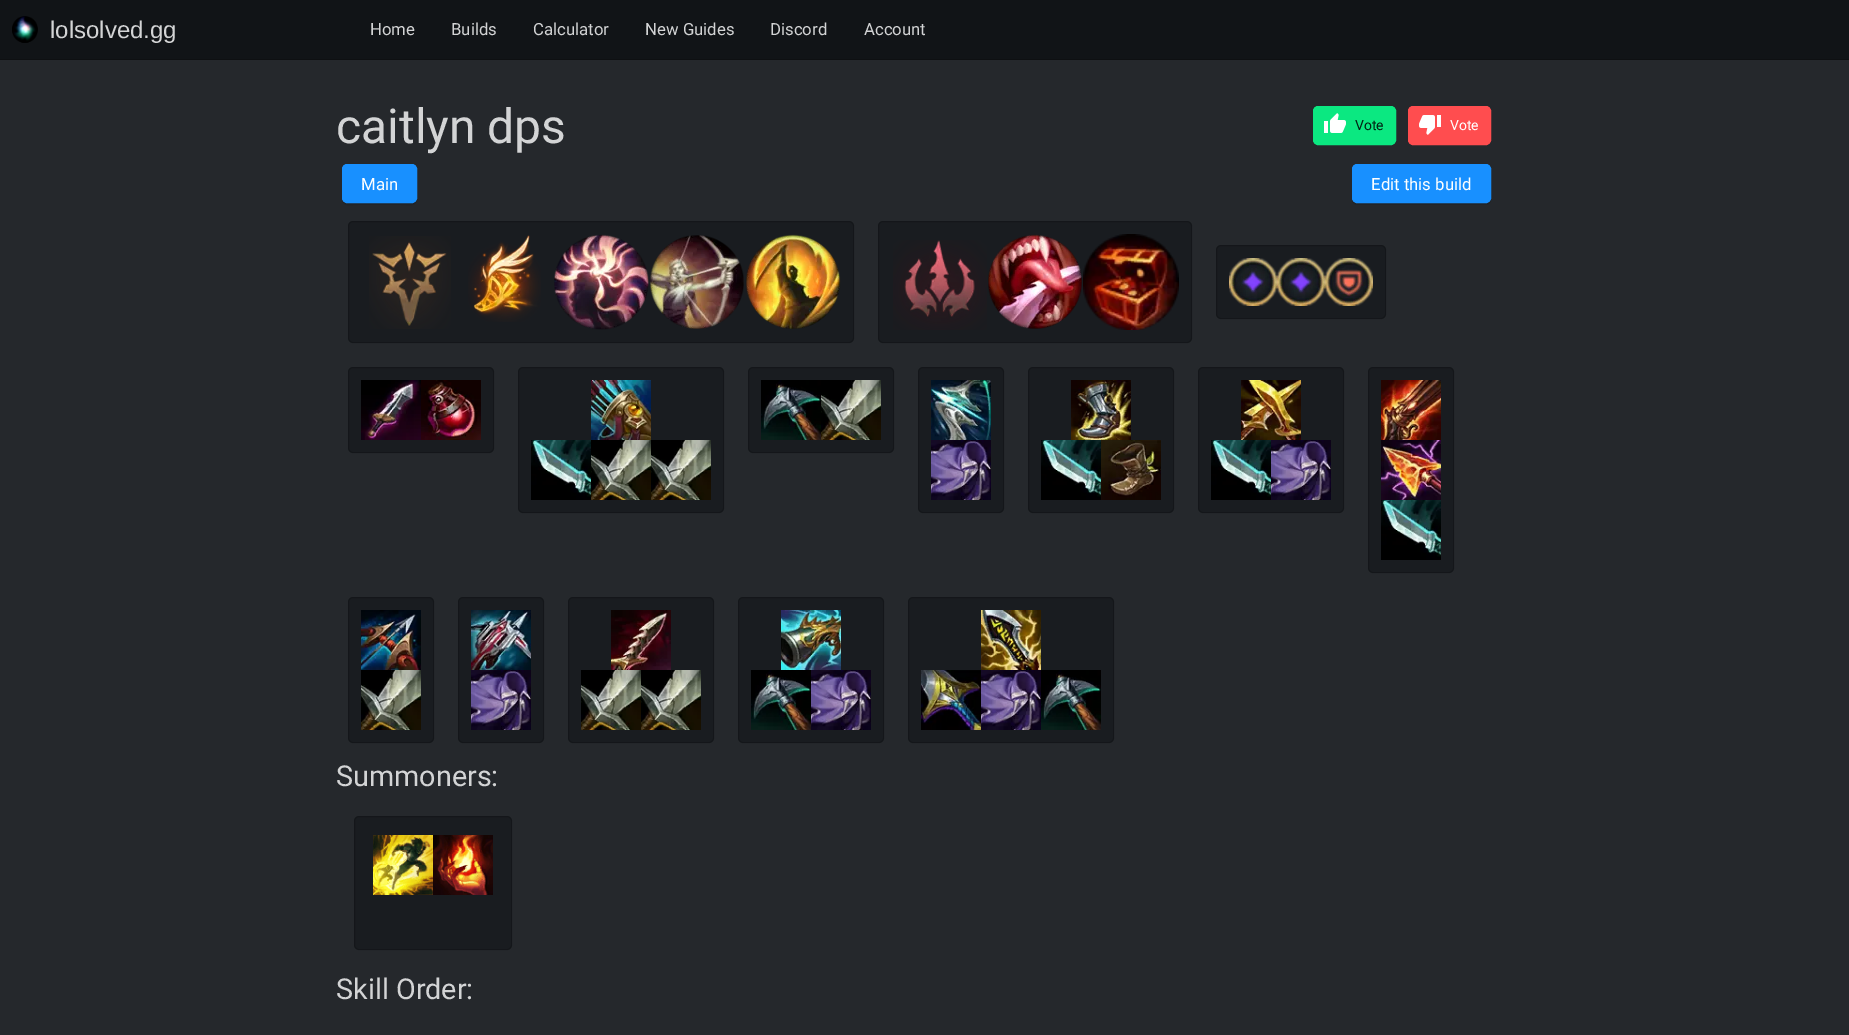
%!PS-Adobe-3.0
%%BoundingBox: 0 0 1849 1035
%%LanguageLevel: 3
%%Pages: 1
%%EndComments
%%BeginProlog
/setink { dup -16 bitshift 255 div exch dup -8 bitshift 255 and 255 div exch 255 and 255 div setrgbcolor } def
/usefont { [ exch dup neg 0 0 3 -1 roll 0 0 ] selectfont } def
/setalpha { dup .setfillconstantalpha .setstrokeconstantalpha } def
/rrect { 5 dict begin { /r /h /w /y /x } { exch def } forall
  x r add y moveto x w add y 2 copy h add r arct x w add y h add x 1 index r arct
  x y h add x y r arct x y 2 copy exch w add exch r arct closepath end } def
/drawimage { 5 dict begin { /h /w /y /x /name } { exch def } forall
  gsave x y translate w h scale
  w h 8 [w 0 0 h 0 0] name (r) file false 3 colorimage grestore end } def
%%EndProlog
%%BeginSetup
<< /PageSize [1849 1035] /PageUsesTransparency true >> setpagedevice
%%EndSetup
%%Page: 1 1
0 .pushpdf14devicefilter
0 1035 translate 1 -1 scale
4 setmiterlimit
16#25282C setink
0 0 1849 1035 rectfill
16#111417 setink
0 0 1849 59 rectfill
16#0E1012 setink
0 59 1849 1 rectfill
(img1.raw) 12 16 26 27 drawimage
/LiberationSans-Regular 24 usefont
16#D3D4D5 setink
50 38 moveto (lolsolved.gg) show
/Roboto-Regular 16.75 usefont
[
    [(Home) 370 35]
    [(Builds) 451 35]
    [(Calculator) 533 35]
    [(New Guides) 645 35]
    [(Discord) 770 35]
    [(Account) 864 35]
] { aload pop moveto show } forall
/Roboto-Regular 48 usefont
336 143 moveto (caitlyn dps) show
16#0BE881 setink
1313.5 106.5 82 38 4.5 rrect gsave fill grestore
stroke
(img2.raw) 1324 113 22 20 drawimage
/Roboto-Regular 14 usefont
16#022313 setink
1355 130 moveto (Vote) show
16#FF4D4F setink
1408.5 106.5 82 38 4.5 rrect gsave fill grestore
stroke
(img3.raw) 1419 115 22 20 drawimage
16#FFFFFF setink
1450 130 moveto (Vote) show
16#212428 setink
342 198 moveto 342 208 350 205 358 205 curveto 401 205 lineto 409 205 417 208 417 198 curveto 417 201 415 203 412 203 curveto 347 203 lineto 344 203 342 201 342 198 curveto closepath fill
16#1890FF setink
342.5 164.5 74 38 4.5 rrect gsave fill grestore
stroke
/Roboto-Regular 16.75 usefont
16#FFFFFF setink
361 190 moveto (Main) show
16#212428 setink
1352 198 moveto 1352 200 lineto 1352 203 1354 205 1357 205 curveto 1486 205 lineto 1489 205 1491 203 1491 200 curveto 1491 198 lineto 1491 201 1489 203 1486 203 curveto 1357 203 lineto 1354 203 1352 201 1352 198 curveto closepath fill
16#1890FF setink
1352.5 164.5 138 38 4.5 rrect gsave fill grestore
stroke
16#FFFFFF setink
1371 190 moveto (Edit this build) show
16#191C20 setink
348 221 506 122 5 rrect fill
0.2 setalpha
16#000000 setink
348.5 221.5 505 121 4.5 rrect stroke
1 setalpha
(img4.raw) 369 236 82 93 drawimage
(img5.raw) 468 235 73 87 drawimage
(img6.raw) 554 234 95 96 drawimage
(img7.raw) 649 235 95 94 drawimage
(img8.raw) 746 234 95 95 drawimage
16#191C20 setink
878 221 314 122 5 rrect fill
0.2 setalpha
16#000000 setink
878.5 221.5 313 121 4.5 rrect stroke
1 setalpha
(img9.raw) 893 240 94 90 drawimage
(img10.raw) 988 234 94 95 drawimage
(img11.raw) 1083 234 96 96 drawimage
16#191C20 setink
1216 245 170 74 5 rrect fill
0.2 setalpha
16#000000 setink
1216.5 245.5 169 73 4.5 rrect stroke
1 setalpha
(img12.raw) 1229 258 48 48 drawimage
(img12.raw) 1277 258 48 48 drawimage
(img13.raw) 1325 258 48 48 drawimage
16#191C20 setink
348 367 146 86 5 rrect fill
0.2 setalpha
16#000000 setink
348.5 367.5 145 85 4.5 rrect stroke
1 setalpha
(img14.raw) 361 380 60 60 drawimage
(img15.raw) 421 380 60 60 drawimage
16#191C20 setink
518 367 206 146 5 rrect fill
0.2 setalpha
16#000000 setink
518.5 367.5 205 145 4.5 rrect stroke
1 setalpha
(img16.raw) 591 380 60 60 drawimage
(img17.raw) 531 440 60 60 drawimage
(img18.raw) 591 440 60 60 drawimage
(img19.raw) 651 440 60 60 drawimage
16#191C20 setink
748 367 146 86 5 rrect fill
0.2 setalpha
16#000000 setink
748.5 367.5 145 85 4.5 rrect stroke
1 setalpha
(img20.raw) 761 380 60 60 drawimage
(img18.raw) 821 380 60 60 drawimage
16#191C20 setink
918 367 86 146 5 rrect fill
0.2 setalpha
16#000000 setink
918.5 367.5 85 145 4.5 rrect stroke
1 setalpha
(img21.raw) 931 380 60 60 drawimage
(img22.raw) 931 440 60 60 drawimage
16#191C20 setink
1028 367 146 146 5 rrect fill
0.2 setalpha
16#000000 setink
1028.5 367.5 145 145 4.5 rrect stroke
1 setalpha
(img23.raw) 1071 380 60 60 drawimage
(img17.raw) 1041 440 60 60 drawimage
(img24.raw) 1101 440 60 60 drawimage
16#191C20 setink
1198 367 146 146 5 rrect fill
0.2 setalpha
16#000000 setink
1198.5 367.5 145 145 4.5 rrect stroke
1 setalpha
(img25.raw) 1241 380 60 60 drawimage
(img26.raw) 1211 440 60 60 drawimage
(img27.raw) 1271 440 60 60 drawimage
16#191C20 setink
1368 367 86 206 5 rrect fill
0.2 setalpha
16#000000 setink
1368.5 367.5 85 205 4.5 rrect stroke
1 setalpha
(img28.raw) 1381 380 60 60 drawimage
(img29.raw) 1381 440 60 60 drawimage
(img17.raw) 1381 500 60 60 drawimage
16#191C20 setink
348 597 86 146 5 rrect fill
0.2 setalpha
16#000000 setink
348.5 597.5 85 145 4.5 rrect stroke
1 setalpha
(img30.raw) 361 610 60 60 drawimage
(img18.raw) 361 670 60 60 drawimage
16#191C20 setink
458 597 86 146 5 rrect fill
0.2 setalpha
16#000000 setink
458.5 597.5 85 145 4.5 rrect stroke
1 setalpha
(img31.raw) 471 610 60 60 drawimage
(img27.raw) 471 670 60 60 drawimage
16#191C20 setink
568 597 146 146 5 rrect fill
0.2 setalpha
16#000000 setink
568.5 597.5 145 145 4.5 rrect stroke
1 setalpha
(img32.raw) 611 610 60 60 drawimage
(img18.raw) 581 670 60 60 drawimage
(img19.raw) 641 670 60 60 drawimage
16#191C20 setink
738 597 146 146 5 rrect fill
0.2 setalpha
16#000000 setink
738.5 597.5 145 145 4.5 rrect stroke
1 setalpha
(img33.raw) 781 610 60 60 drawimage
(img34.raw) 751 670 60 60 drawimage
(img35.raw) 811 670 60 60 drawimage
16#191C20 setink
908 597 206 146 5 rrect fill
0.2 setalpha
16#000000 setink
908.5 597.5 205 145 4.5 rrect stroke
1 setalpha
(img36.raw) 981 610 60 60 drawimage
(img37.raw) 921 670 60 60 drawimage
(img27.raw) 981 670 60 60 drawimage
(img34.raw) 1041 670 60 60 drawimage
/Roboto-Regular 28.75 usefont
16#D3D4D5 setink
336 786 moveto (Summoners:) show
16#191C20 setink
354 816 158 134 5 rrect fill
0.2 setalpha
16#000000 setink
354.5 816.5 157 133 4.5 rrect stroke
1 setalpha
(img38.raw) 373 835 60 60 drawimage
(img39.raw) 433 835 60 60 drawimage
16#D3D4D5 setink
336 999 moveto (Skill Order:) show
.poppdf14devicefilter showpage
%%EOF
